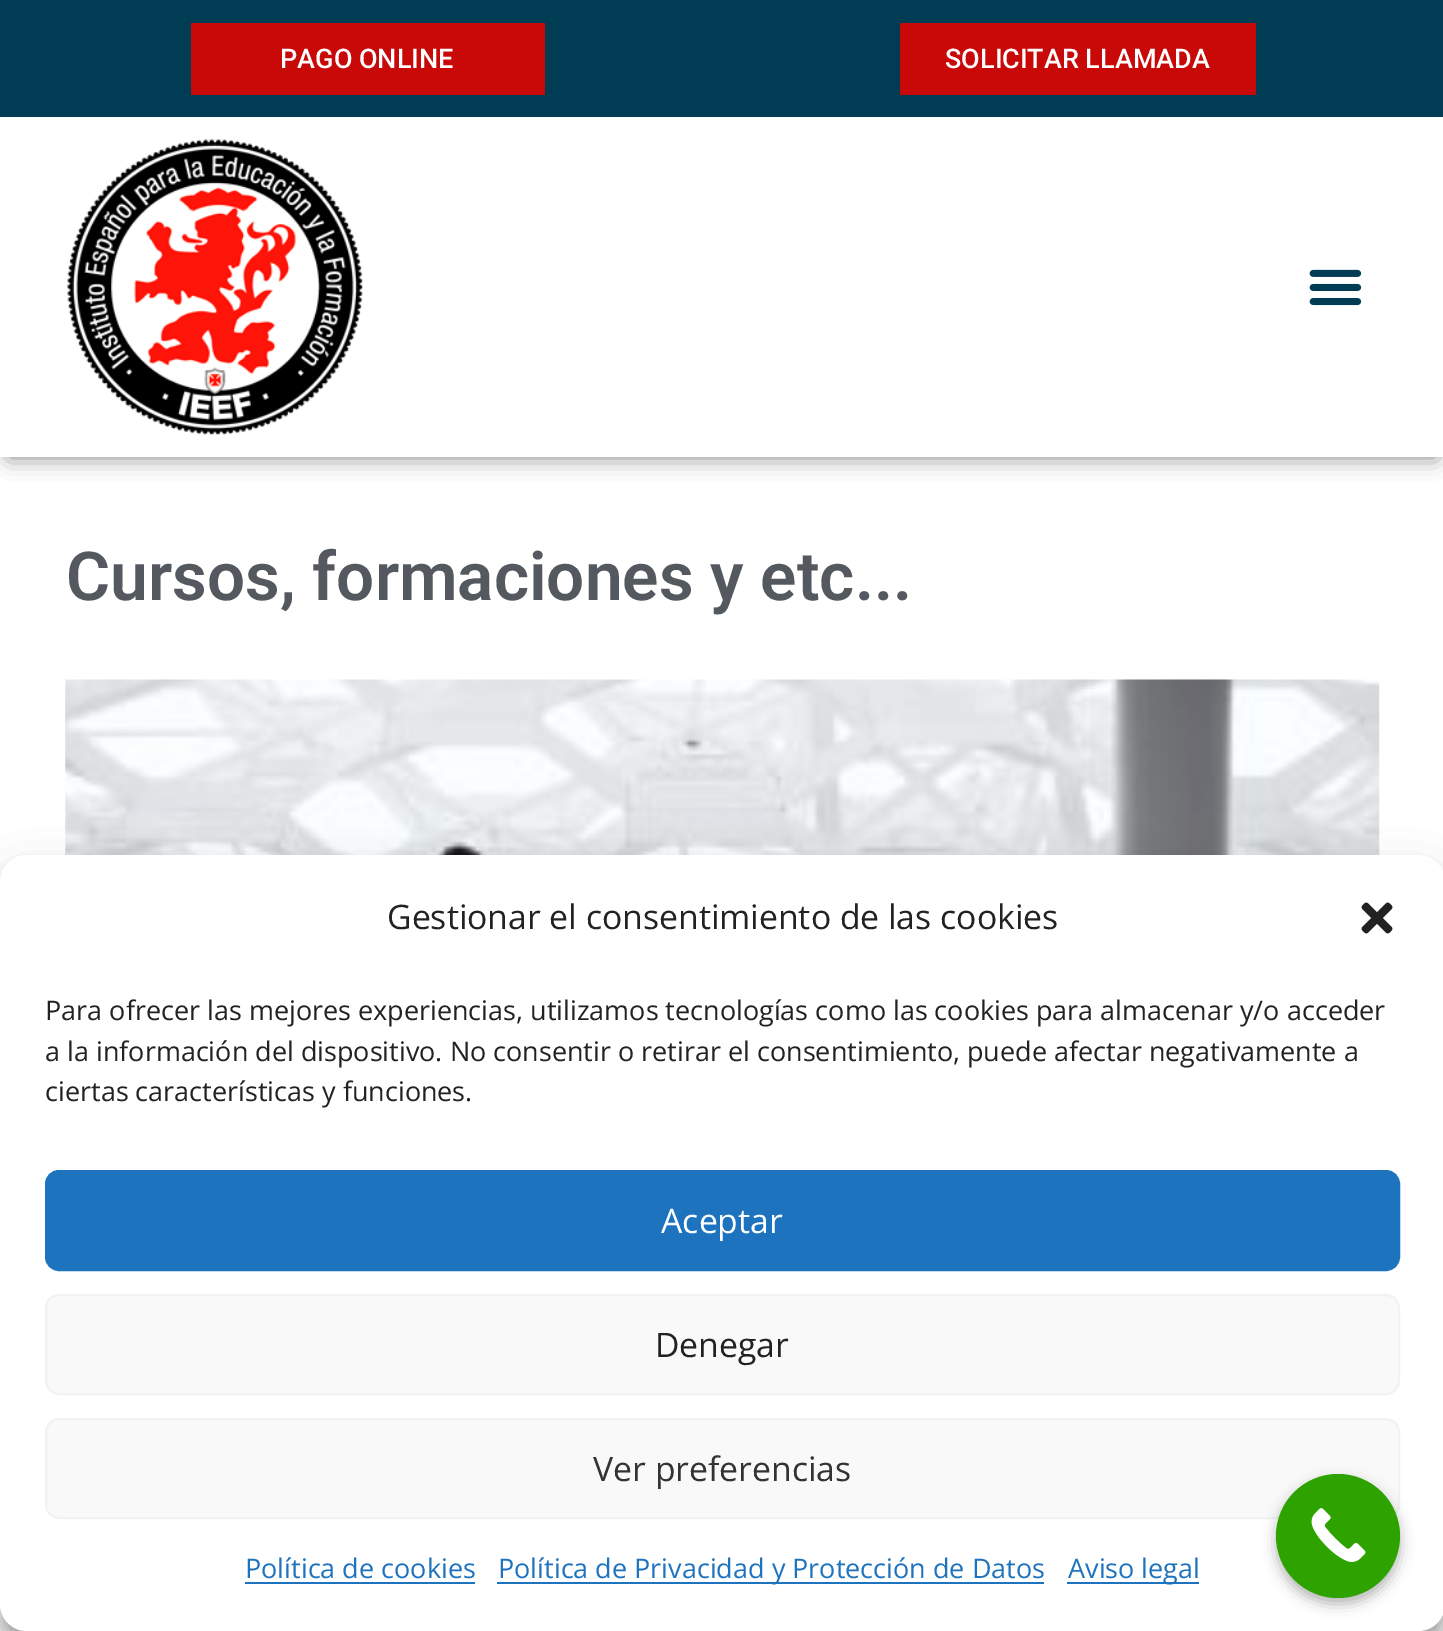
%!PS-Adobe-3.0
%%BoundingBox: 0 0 1443 1631
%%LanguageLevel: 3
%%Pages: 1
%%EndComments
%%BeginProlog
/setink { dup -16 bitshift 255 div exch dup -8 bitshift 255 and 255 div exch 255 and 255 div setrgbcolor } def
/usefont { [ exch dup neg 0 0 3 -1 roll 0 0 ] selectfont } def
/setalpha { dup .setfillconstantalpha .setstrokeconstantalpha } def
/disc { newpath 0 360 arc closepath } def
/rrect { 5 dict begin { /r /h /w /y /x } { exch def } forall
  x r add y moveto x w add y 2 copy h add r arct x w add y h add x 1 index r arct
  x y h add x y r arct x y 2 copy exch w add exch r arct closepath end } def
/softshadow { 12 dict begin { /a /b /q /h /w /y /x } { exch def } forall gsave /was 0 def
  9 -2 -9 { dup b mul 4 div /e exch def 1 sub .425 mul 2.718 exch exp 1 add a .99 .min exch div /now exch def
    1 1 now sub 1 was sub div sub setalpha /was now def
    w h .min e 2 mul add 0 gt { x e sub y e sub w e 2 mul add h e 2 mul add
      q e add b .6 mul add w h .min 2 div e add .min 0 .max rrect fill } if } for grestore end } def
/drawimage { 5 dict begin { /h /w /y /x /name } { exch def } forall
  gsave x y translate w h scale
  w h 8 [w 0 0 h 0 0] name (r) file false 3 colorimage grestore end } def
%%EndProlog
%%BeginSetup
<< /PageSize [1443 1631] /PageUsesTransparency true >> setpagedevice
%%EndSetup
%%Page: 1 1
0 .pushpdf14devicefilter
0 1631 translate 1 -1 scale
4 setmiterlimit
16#FFFFFF setink
0 0 1443 1631 rectfill
gsave
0 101 moveto 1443 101 lineto 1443 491 lineto 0 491 lineto closepath 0 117 moveto 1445 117 lineto 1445 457 lineto 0 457 lineto closepath eoclip newpath
16#000000 setink
9 135 1427 322 0 11 0.5 softshadow
grestore
16#003D54 setink
0 0 1443 117 rectfill
16#C90808 setink
191 23 354 72 rectfill
/Roboto-Medium 27 usefont
16#FFFFFF setink
280 68 moveto (PAGO ONLINE) show
16#C90808 setink
900 23 356 72 rectfill
16#FFFFFF setink
945 68 moveto (SOLICITAR LLAMADA) show
(img1.raw) 67 139 296 296 drawimage
(img2.raw) 1309 269 53 37 drawimage
/Roboto-SemiBold 67.5 usefont
16#54595F setink
66 600 moveto (Cursos, formaciones y etc...) show
(img3.raw) 65 679 1315 176 drawimage
16#000000 setink
0 869 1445 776 27 7 0.23 softshadow
0 878 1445 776 27 22.5 0.19 softshadow
16#FFFFFF setink
0 855 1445 776 27 rrect fill
/OpenSans-Regular 33.75 usefont
16#222222 setink
387 929 moveto (Gestionar el consentimiento de las cookies) show
(img4.raw) 1361 902 32 32 drawimage
/OpenSans-Regular 27 usefont
[
    [(Para ofrecer las mejores experiencias, utilizamos tecnologías como las cookies para almacenar y/o acceder) 45 1020]
    [(a la información del dispositivo. No consentir o retirar el consentimiento, puede afectar negativamente a) 45 1061]
    [(ciertas características y funciones.) 45 1101]
] { aload pop moveto show } forall
16#1E73BE setink
46 1171 1353 99 13 rrect gsave fill grestore
2 setlinewidth
stroke
/OpenSans-Regular 33.75 usefont
16#FFFFFF setink
661 1233 moveto (Aceptar) show
16#F9F9F9 setink
46 1295 1353 99 13 rrect gsave fill grestore
16#F2F2F2 setink
stroke
16#222222 setink
655 1357 moveto (Denegar) show
16#F9F9F9 setink
46 1419 1353 99 13 rrect gsave fill grestore
16#F2F2F2 setink
stroke
16#333333 setink
593 1481 moveto (Ver preferencias) show
/OpenSans-Regular 27 usefont
16#1E73BE setink
245 1578 moveto (Política de cookies) show
245 1582 230 2 rectfill
497 1582 547 2 rectfill
498 1578 moveto (Política de Privacidad y Protección de Datos) show
1067 1582 132 2 rectfill
1068 1578 moveto (Aviso legal) show
16#000000 setink
1276 1481 124 123 61.5 7 0.3 softshadow
16#2EA300 setink
1338 1536 62 disc fill
(img5.raw) 1311 1508 55 54 drawimage
.poppdf14devicefilter showpage
%%EOF
